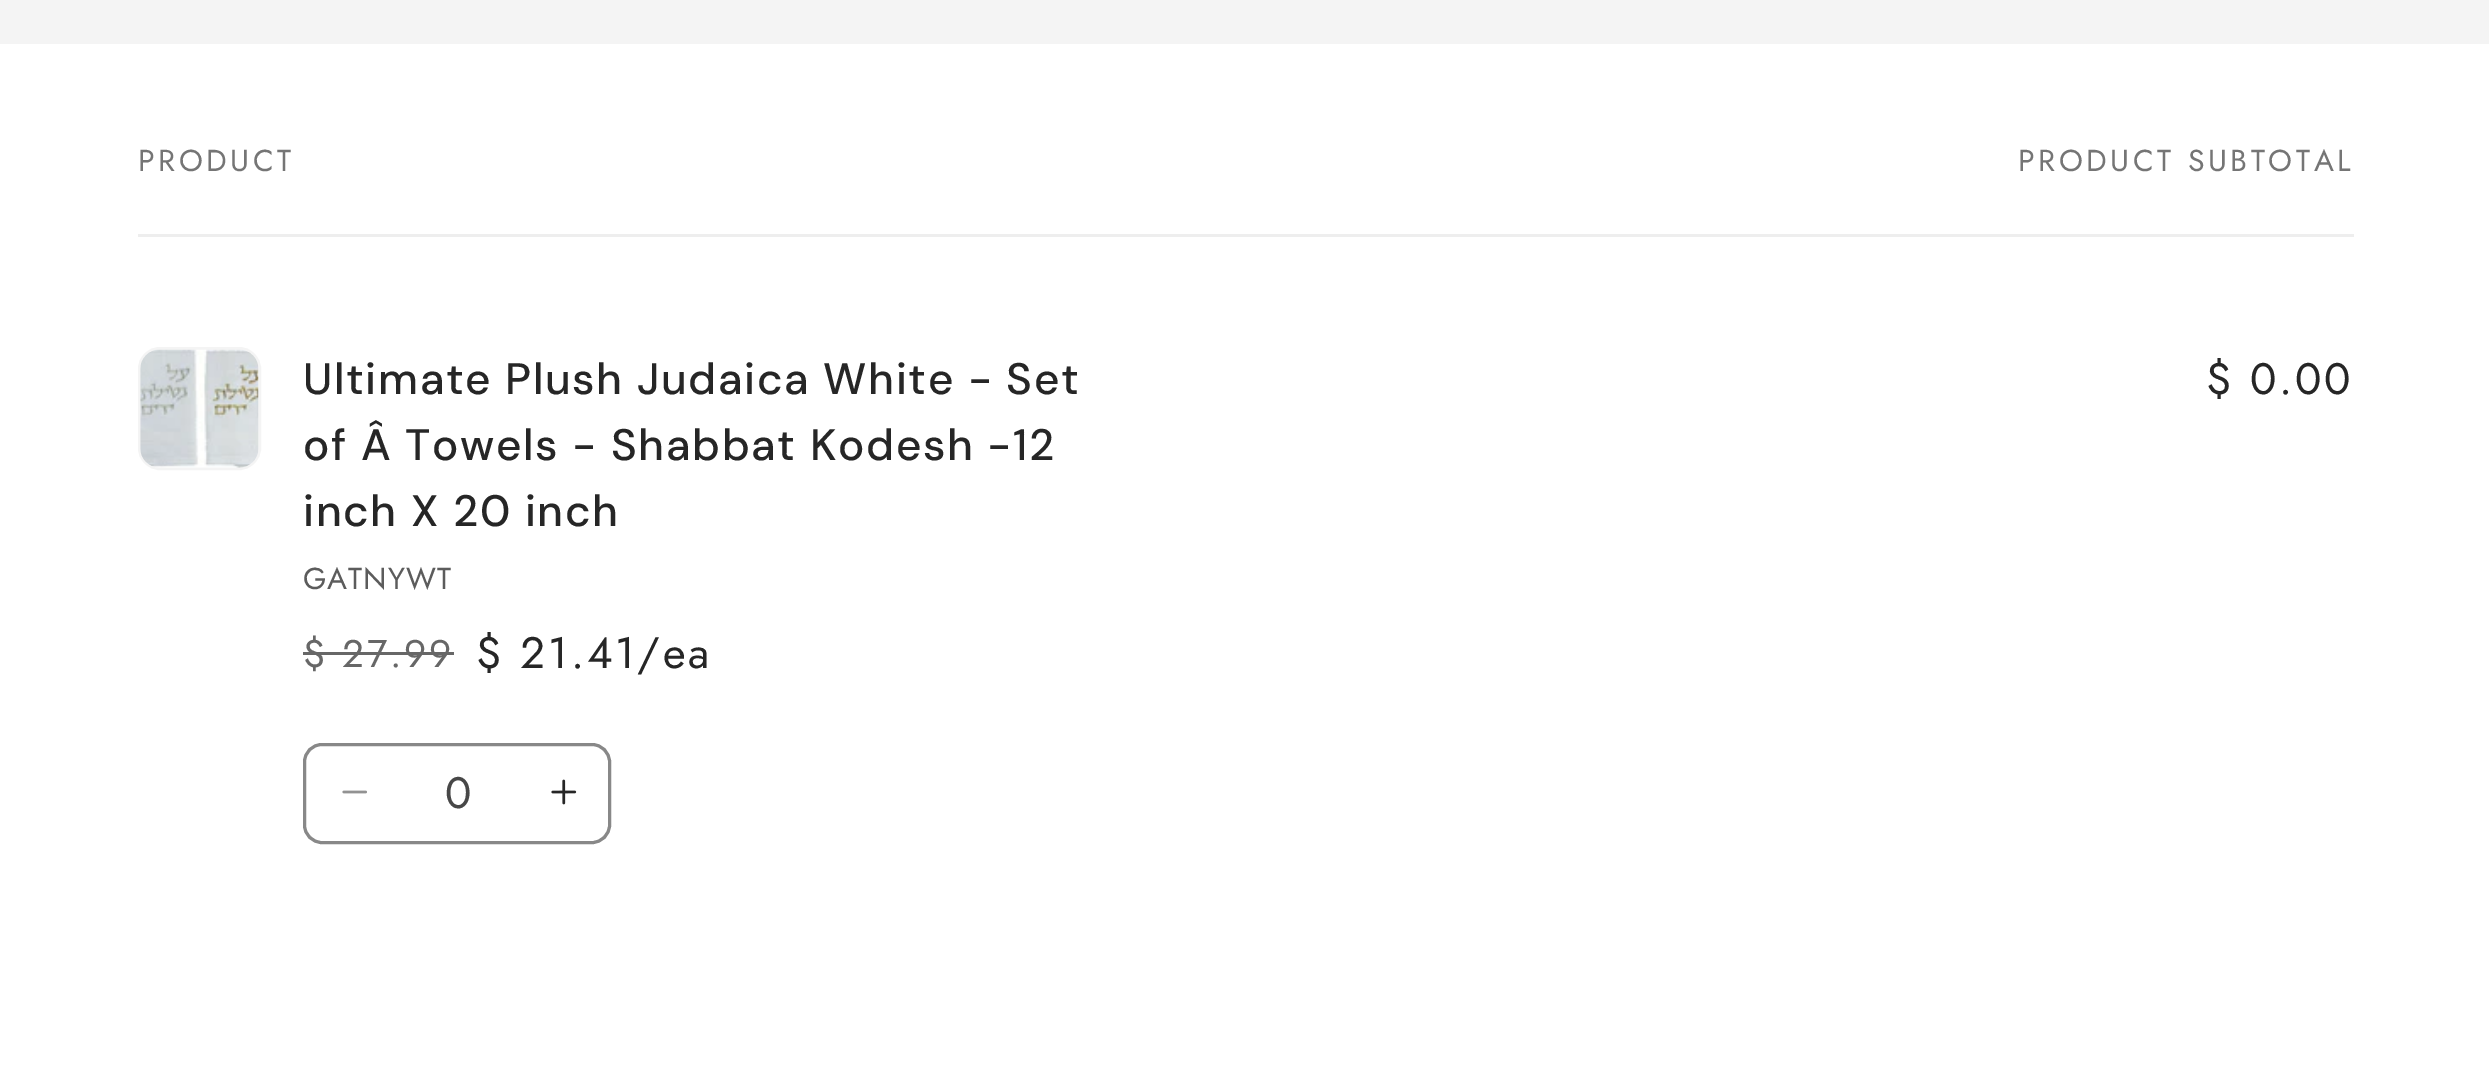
%!PS-Adobe-3.0
%%BoundingBox: 0 0 2489 1075
%%LanguageLevel: 3
%%Pages: 1
%%EndComments
%%BeginProlog
/setink { dup -16 bitshift 255 div exch dup -8 bitshift 255 and 255 div exch 255 and 255 div setrgbcolor } def
/usefont { [ exch dup neg 0 0 3 -1 roll 0 0 ] selectfont } def
/rrect { 5 dict begin { /r /h /w /y /x } { exch def } forall
  x r add y moveto x w add y 2 copy h add r arct x w add y h add x 1 index r arct
  x y h add x y r arct x y 2 copy exch w add exch r arct closepath end } def
/drawimage { 5 dict begin { /h /w /y /x /name } { exch def } forall
  gsave x y translate w h scale
  w h 8 [w 0 0 h 0 0] name (r) file false 3 colorimage grestore end } def
%%EndProlog
%%BeginSetup
<< /PageSize [2489 1075] >> setpagedevice
%%EndSetup
%%Page: 1 1
0 1075 translate 1 -1 scale
4 setmiterlimit
16#F4F4F4 setink
0 0 2489 1075 rectfill
16#FFFFFF setink
0 44 2489 1031 rectfill
16#EEEEEE setink
138 234 2216 3 rectfill
/Jost-Regular 30.25 usefont
16#757575 setink
138 171 moveto 3.6 0 (PRODUCT) ashow
2018 171 moveto 3.6 0 (PRODUCT SUBTOTAL) ashow
16#F4F4F4 setink
3 setlinewidth
139.5 348.5 120 120 20.5 rrect stroke
(img1.raw) 140 349 119 119 drawimage
/DMSans-Medium 44 usefont
16#262626 setink
303 394 moveto 1.65 0 (Ultimate Plush Judaica White - Set) ashow
303 460 moveto 1.65 0 (of Â Towels - Shabbat Kodesh -12) ashow
303 526 moveto 1.65 0 (inch X 20 inch) ashow
/Jost-Regular 30.25 usefont
16#5C5C5C setink
303 589 moveto 1 0 (GATNYWT) ashow
/Jost-Regular 38.5 usefont
16#676767 setink
303 667 moveto 2.75 0 ($ 27.99) ashow
303 652 151 3 rectfill
/Jost-Regular 44 usefont
16#262626 setink
476 668 moveto 2.75 0 ($ 21.41/ea) ashow
2206 394 moveto 2.75 0 ($ 0.00) ashow
(img2.raw) 342 790 25 4 drawimage
(img3.raw) 551 779 26 26 drawimage
16#888888 setink
304.5 744.5 305 98 17.5 rrect stroke
16#474747 setink
445 808 moveto (0) show
showpage
%%EOF
